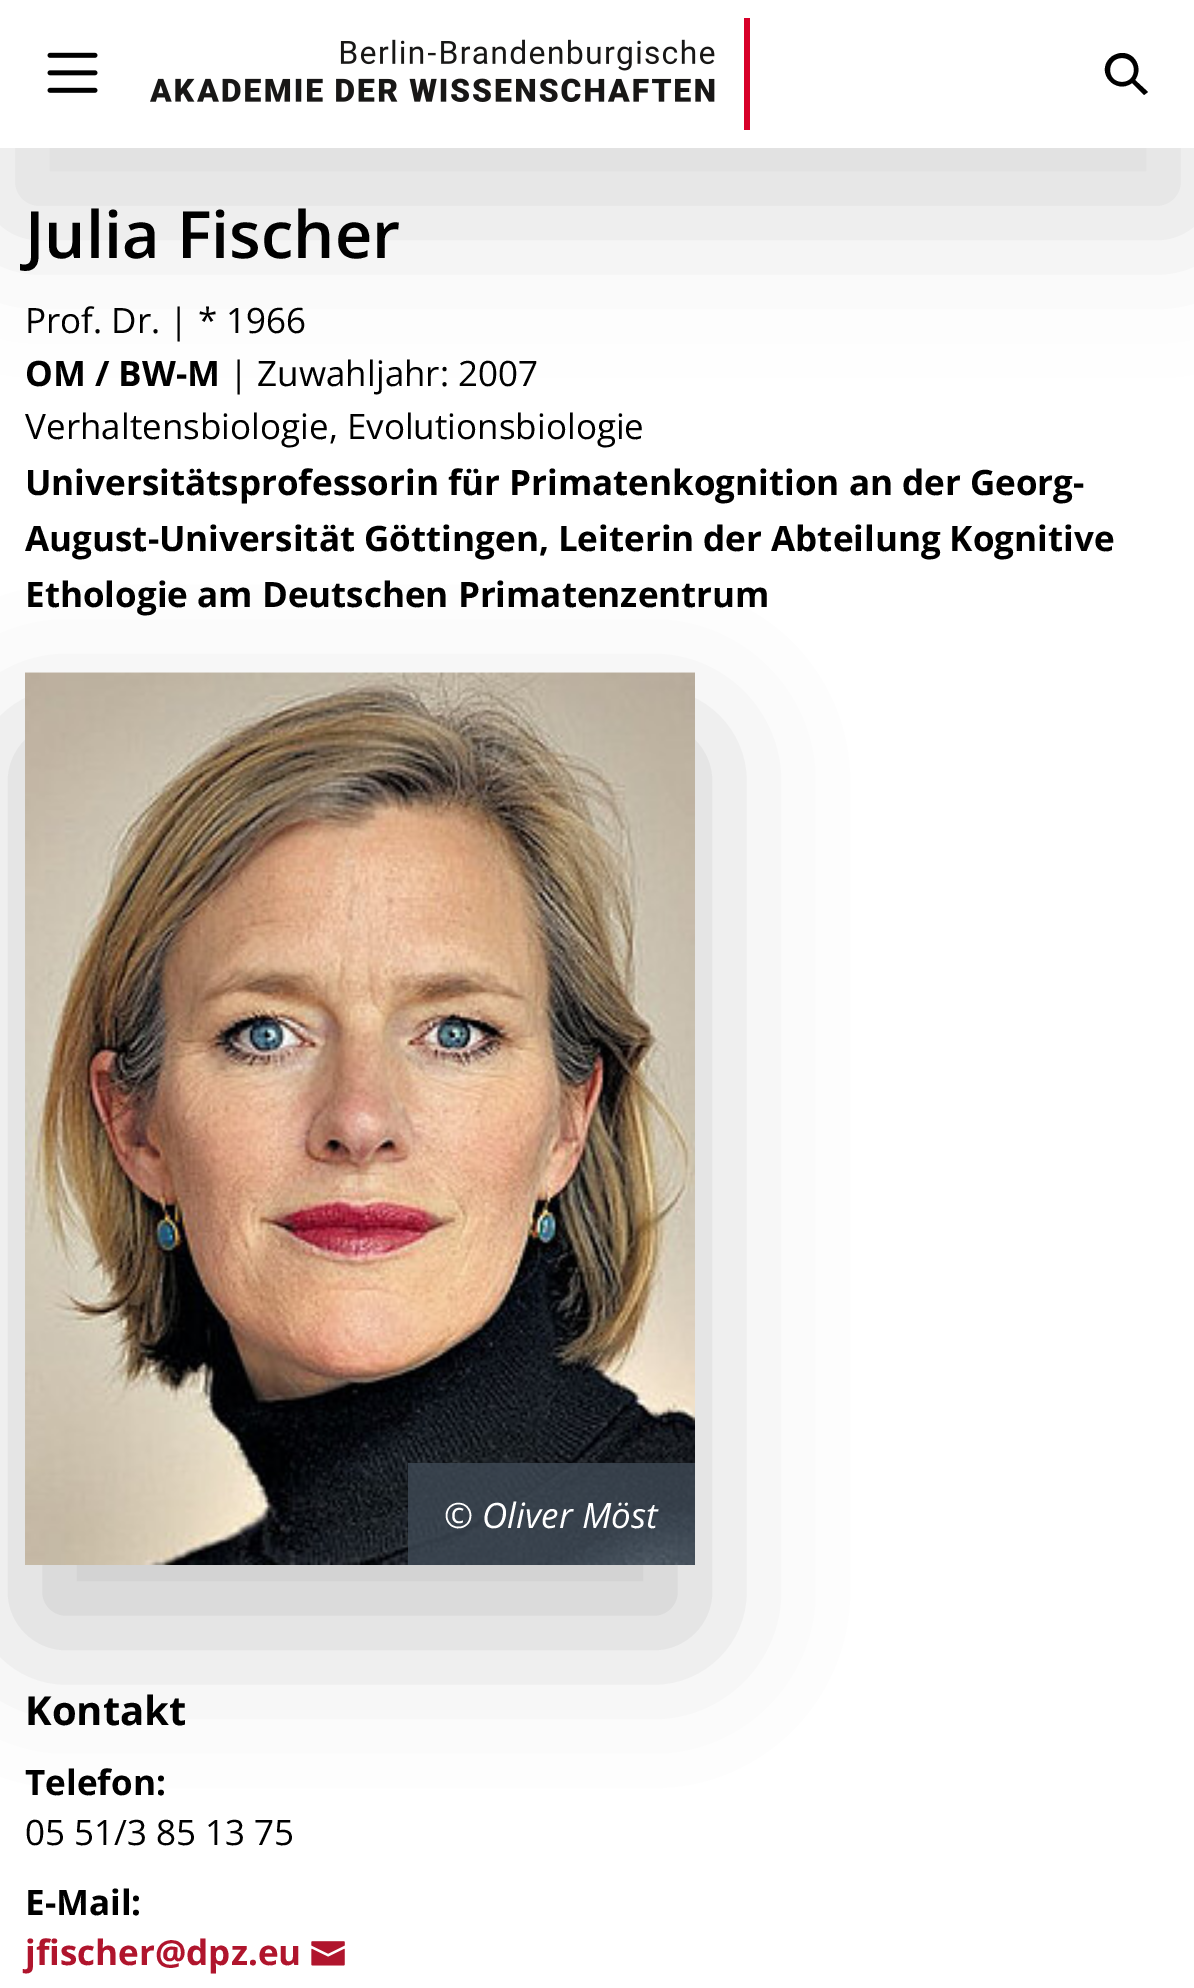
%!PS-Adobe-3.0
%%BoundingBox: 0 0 1194 1988
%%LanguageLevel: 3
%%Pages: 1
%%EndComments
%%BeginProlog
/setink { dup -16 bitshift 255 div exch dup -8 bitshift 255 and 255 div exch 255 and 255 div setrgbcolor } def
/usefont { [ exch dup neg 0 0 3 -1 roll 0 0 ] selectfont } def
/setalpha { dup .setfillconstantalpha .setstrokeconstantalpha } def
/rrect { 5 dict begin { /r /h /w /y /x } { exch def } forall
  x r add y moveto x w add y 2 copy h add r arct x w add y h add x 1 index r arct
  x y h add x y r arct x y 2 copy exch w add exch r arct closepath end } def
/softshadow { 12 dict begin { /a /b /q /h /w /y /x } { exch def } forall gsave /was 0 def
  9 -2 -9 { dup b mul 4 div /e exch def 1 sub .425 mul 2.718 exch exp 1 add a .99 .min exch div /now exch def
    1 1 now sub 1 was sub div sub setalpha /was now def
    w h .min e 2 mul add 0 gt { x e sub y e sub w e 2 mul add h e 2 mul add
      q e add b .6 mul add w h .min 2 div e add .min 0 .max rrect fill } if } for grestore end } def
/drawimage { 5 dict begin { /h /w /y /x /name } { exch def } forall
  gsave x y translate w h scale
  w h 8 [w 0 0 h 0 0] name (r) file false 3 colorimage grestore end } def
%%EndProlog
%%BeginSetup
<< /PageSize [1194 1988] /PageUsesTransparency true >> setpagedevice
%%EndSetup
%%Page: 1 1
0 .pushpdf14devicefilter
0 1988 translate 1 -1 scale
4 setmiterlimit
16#FFFFFF setink
0 0 1194 1988 rectfill
16#000000 setink
-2 70 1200 153 0 69 0.14 softshadow
16#FFFFFF setink
0 0 1194 148 rectfill
(img1.raw) 47 52 51 41 drawimage
(img2.raw) 150 18 600 112 drawimage
16#000000 setink
1122 53 moveto 1136 53 1143 69 1135 80 curveto 1148 92 lineto 1144 95 lineto 1132 83 lineto 1116 95 1095 73 1110 58 curveto 1113 55 1118 53 1122 53 curveto closepath 1122 58 moveto 1106 58 1106 82 1122 82 curveto 1138 82 1138 58 1122 58 curveto closepath fill
/OpenSans-SemiBold 65 usefont
25 258 moveto (Julia Fischer) show
/OpenSans-Regular 35 usefont
25 333 moveto (Prof. Dr. | * 1966) show
/OpenSans-Bold 35 usefont
25 386 moveto (OM / BW-M) show
/OpenSans-Regular 35 usefont
229 386 moveto (| Zuwahljahr: 2007) show
25 439 moveto (Verhaltensbiologie, Evolutionsbiologie) show
/OpenSans-Bold 35 usefont
[
    [(Universitätsprofessorin für Primatenkognition an der Georg-) 25 495]
    [(August-Universität Göttingen, Leiterin der Abteilung Kognitive) 25 551]
    [(Ethologie am Deutschen Primatenzentrum) 25 607]
] { aload pop moveto show } forall
25 740 670 893 0 69 0.2 softshadow
(img3.raw) 25 672 670 893 drawimage
0.8 setalpha
16#3E4955 setink
408 1463 287 102 rectfill
/OpenSans-Italic 35 usefont
1 setalpha
16#FFFFFF setink
444 1528 moveto (© Oliver Möst) show
/OpenSans-Bold 40 usefont
16#000000 setink
25 1725 moveto (Kontakt) show
/OpenSans-Bold 35 usefont
25 1795 moveto (Telefon:) show
/OpenSans-Regular 35 usefont
25 1845 moveto (05 51/3 85 13 75) show
/OpenSans-Bold 35 usefont
25 1915 moveto (E-Mail:) show
16#B0152D setink
25 1965 moveto (jfischer@dpz.eu) show
(img4.raw) 311 1941 34 25 drawimage
.poppdf14devicefilter showpage
%%EOF
